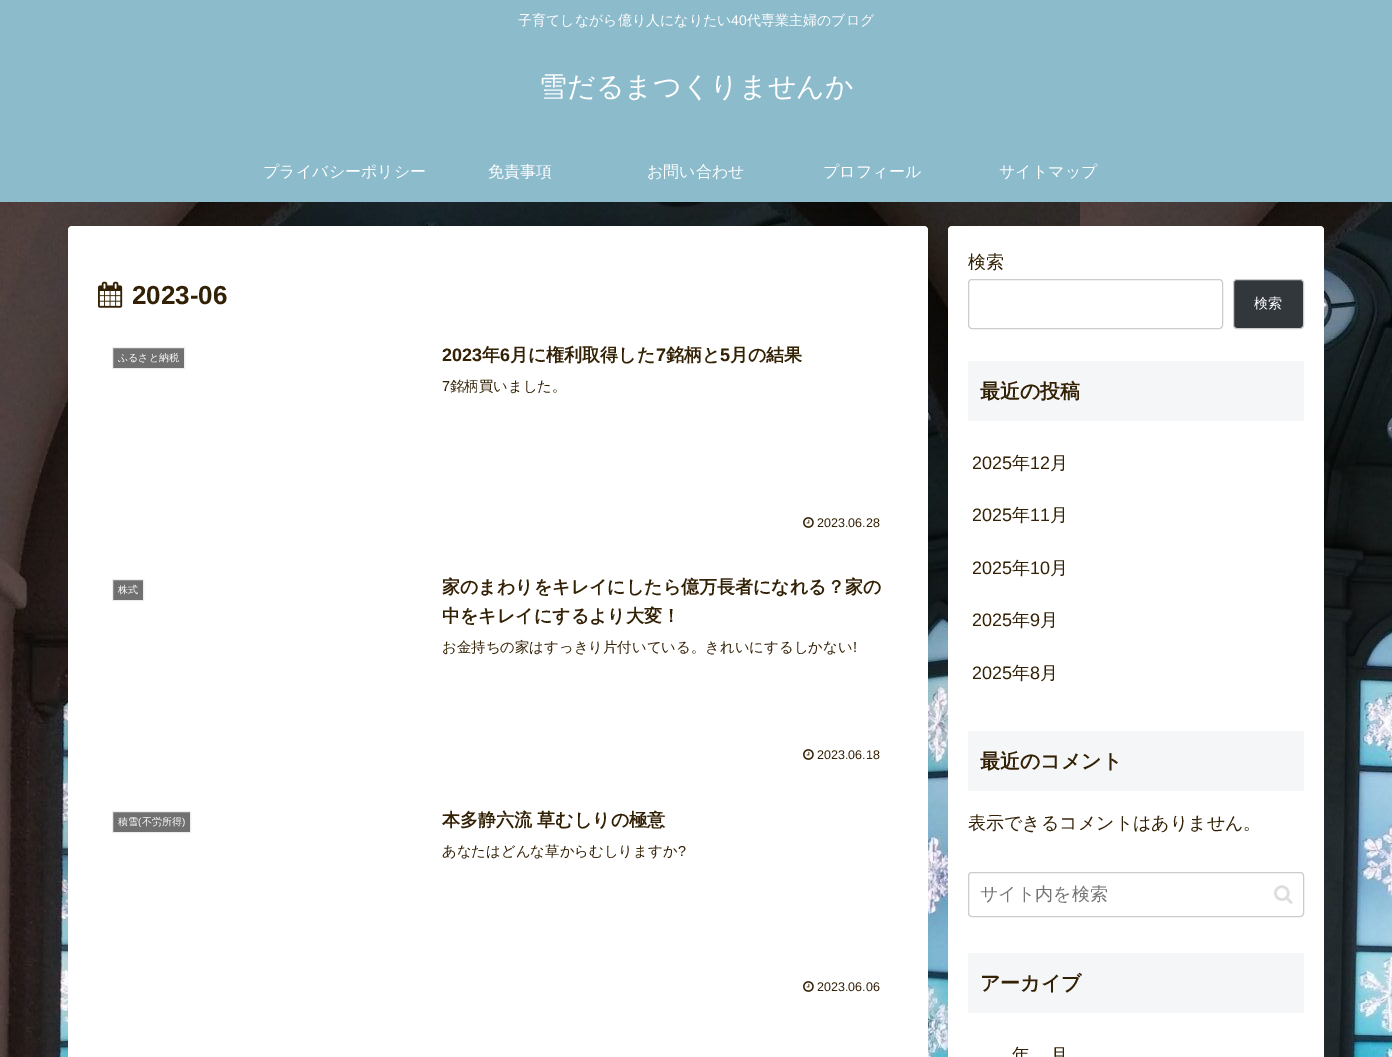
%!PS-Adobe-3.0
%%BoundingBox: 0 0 1392 1057
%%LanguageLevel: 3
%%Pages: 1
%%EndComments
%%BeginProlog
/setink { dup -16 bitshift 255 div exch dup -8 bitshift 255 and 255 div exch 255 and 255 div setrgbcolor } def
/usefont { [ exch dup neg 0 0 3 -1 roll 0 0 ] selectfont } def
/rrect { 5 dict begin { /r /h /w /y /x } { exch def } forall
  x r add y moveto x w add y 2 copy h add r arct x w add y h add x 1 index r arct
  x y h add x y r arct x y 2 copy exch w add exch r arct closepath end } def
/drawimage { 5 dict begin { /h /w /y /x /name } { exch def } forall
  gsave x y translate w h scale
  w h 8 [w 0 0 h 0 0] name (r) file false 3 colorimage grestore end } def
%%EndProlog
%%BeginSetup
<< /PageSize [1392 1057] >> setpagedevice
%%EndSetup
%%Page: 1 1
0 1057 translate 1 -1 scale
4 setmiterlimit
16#FFFFFF setink
0 0 1392 1057 rectfill
(img1.raw) 0 202 1392 855 drawimage
16#8CBBCC setink
0 0 1392 202 rectfill
/WenQuanYiZenHei-Medium 14 usefont
16#FFFFFF setink
518 25 moveto (子育てしながら億り人になりたい) show
/LiberationSans-Regular 14 usefont
731 25 moveto (40) show
/WenQuanYiZenHei-Medium 14 usefont
747 25 moveto (代専業主婦のブログ) show
/WenQuanYiZenHei-Medium 28 usefont
539 96 moveto (雪だるまつくりませんか) show
/WenQuanYiZenHei-Medium 16 usefont
[
    [(プライバシーポリシー) 263 177]
    [(免責事項) 488 177]
    [(お問い合わせ) 647 177]
    [(プロフィール) 823 177]
    [(サイトマップ) 999 177]
] { aload pop moveto show } forall
68 226 860 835 4 rrect fill
(img2.raw) 98 281 25 27 drawimage
/LiberationSans-Bold 26 usefont
16#332105 setink
132 304 moveto (2023-06) show
16#707070 setink
112.5 347.5 moveto 184.5 347.5 lineto 184.5 368.5 lineto 112.5 368.5 lineto closepath gsave fill grestore
16#EEEEEE setink
stroke
/WenQuanYiZenHei-Medium 10 usefont
16#FFFFFF setink
118 361 moveto (ふるさと納税) show
/LiberationSans-Bold 18 usefont
16#332105 setink
442 361 moveto (2023) show
/WenQuanYiZenHei-Bold 18 usefont
482 361 moveto (年) show
/LiberationSans-Bold 18 usefont
500 361 moveto (6) show
/WenQuanYiZenHei-Bold 18 usefont
510 361 moveto (月に権利取得した) show
/LiberationSans-Bold 18 usefont
656 361 moveto (7) show
/WenQuanYiZenHei-Bold 18 usefont
666 361 moveto (銘柄と) show
/LiberationSans-Bold 18 usefont
720 361 moveto (5) show
/WenQuanYiZenHei-Bold 18 usefont
730 361 moveto (月の結果) show
/LiberationSans-Regular 14.4 usefont
442 391 moveto (7) show
/WenQuanYiZenHei-Medium 14.4 usefont
450 391 moveto (銘柄買いました。) show
(img3.raw) 803 517 11 11 drawimage
/LiberationSans-Regular 12.5 usefont
817 527 moveto (2023.06.28) show
16#707070 setink
112.5 579.5 moveto 143.5 579.5 lineto 143.5 600.5 lineto 112.5 600.5 lineto closepath gsave fill grestore
16#EEEEEE setink
stroke
/WenQuanYiZenHei-Medium 10 usefont
16#FFFFFF setink
118 593 moveto (株式) show
/WenQuanYiZenHei-Bold 18 usefont
16#332105 setink
442 593 moveto (家のまわりをキレイにしたら億万長者になれる？家の) show
442 622 moveto (中をキレイにするより大変！) show
/WenQuanYiZenHei-Medium 14.4 usefont
442 652 moveto (お金持ちの家はすっきり片付いている。きれいにするしかない) show
/LiberationSans-Regular 14.4 usefont
853 652 moveto (!) show
(img3.raw) 803 749 11 11 drawimage
/LiberationSans-Regular 12.5 usefont
817 759 moveto (2023.06.18) show
16#707070 setink
112.5 811.5 moveto 190.5 811.5 lineto 190.5 832.5 lineto 112.5 832.5 lineto closepath gsave fill grestore
16#EEEEEE setink
stroke
/WenQuanYiZenHei-Medium 10 usefont
16#FFFFFF setink
118 825 moveto (積雪) show
/LiberationSans-Regular 10 usefont
138 825 moveto (\() show
/WenQuanYiZenHei-Medium 10 usefont
142 825 moveto (不労所得) show
/LiberationSans-Regular 10 usefont
182 825 moveto (\)) show
/WenQuanYiZenHei-Bold 18 usefont
16#332105 setink
442 826 moveto (本多静六流 草むしりの極意) show
/WenQuanYiZenHei-Medium 14.4 usefont
442 856 moveto (あなたはどんな草からむしりますか) show
/LiberationSans-Regular 14.4 usefont
678 856 moveto (?) show
(img3.raw) 803 981 11 11 drawimage
/LiberationSans-Regular 12.5 usefont
817 991 moveto (2023.06.06) show
16#FFFFFF setink
948 226 376 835 4 rrect fill
/WenQuanYiZenHei-Medium 18 usefont
16#332105 setink
968 268 moveto (検索) show
16#CCCCCC setink
968.5 279.5 254 49 3.5 rrect stroke
16#32373C setink
1233.5 279.5 70 49 3.5 rrect gsave fill grestore
16#CCCCCC setink
stroke
/WenQuanYiZenHei-Medium 14 usefont
16#FFFFFF setink
1254 308 moveto (検索) show
16#F5F6F7 setink
968 361 336 60 2 rrect fill
/WenQuanYiZenHei-Bold 20 usefont
16#332105 setink
980 398 moveto (最近の投稿) show
/LiberationSans-Regular 18 usefont
972 469 moveto (2025) show
/WenQuanYiZenHei-Medium 18 usefont
1012 469 moveto (年) show
/LiberationSans-Regular 18 usefont
1030 469 moveto (12) show
/WenQuanYiZenHei-Medium 18 usefont
1050 469 moveto (月) show
/LiberationSans-Regular 18 usefont
972 521 moveto (2025) show
/WenQuanYiZenHei-Medium 18 usefont
1012 521 moveto (年) show
/LiberationSans-Regular 18 usefont
1030 521 moveto (11) show
/WenQuanYiZenHei-Medium 18 usefont
1050 521 moveto (月) show
/LiberationSans-Regular 18 usefont
972 574 moveto (2025) show
/WenQuanYiZenHei-Medium 18 usefont
1012 574 moveto (年) show
/LiberationSans-Regular 18 usefont
1030 574 moveto (10) show
/WenQuanYiZenHei-Medium 18 usefont
1050 574 moveto (月) show
/LiberationSans-Regular 18 usefont
972 626 moveto (2025) show
/WenQuanYiZenHei-Medium 18 usefont
1012 626 moveto (年) show
/LiberationSans-Regular 18 usefont
1030 626 moveto (9) show
/WenQuanYiZenHei-Medium 18 usefont
1040 626 moveto (月) show
/LiberationSans-Regular 18 usefont
972 679 moveto (2025) show
/WenQuanYiZenHei-Medium 18 usefont
1012 679 moveto (年) show
/LiberationSans-Regular 18 usefont
1030 679 moveto (8) show
/WenQuanYiZenHei-Medium 18 usefont
1040 679 moveto (月) show
16#F5F6F7 setink
968 731 336 60 2 rrect fill
/WenQuanYiZenHei-Bold 20 usefont
16#332105 setink
980 768 moveto (最近のコメント) show
/WenQuanYiZenHei-Medium 18 usefont
968 829 moveto (表示できるコメントはありません。) show
16#CCCCCC setink
968.5 872.5 335 44 3.5 rrect stroke
16#757575 setink
980 900 moveto (サイト内を検索) show
(img4.raw) 1274 885 19 19 drawimage
16#F5F6F7 setink
968 953 336 60 2 rrect fill
/WenQuanYiZenHei-Bold 20 usefont
16#332105 setink
980 990 moveto (アーカイブ) show
/WenQuanYiZenHei-Medium 18 usefont
1012 1061 moveto (年) show
1050 1061 moveto (月) show
showpage
%%EOF
